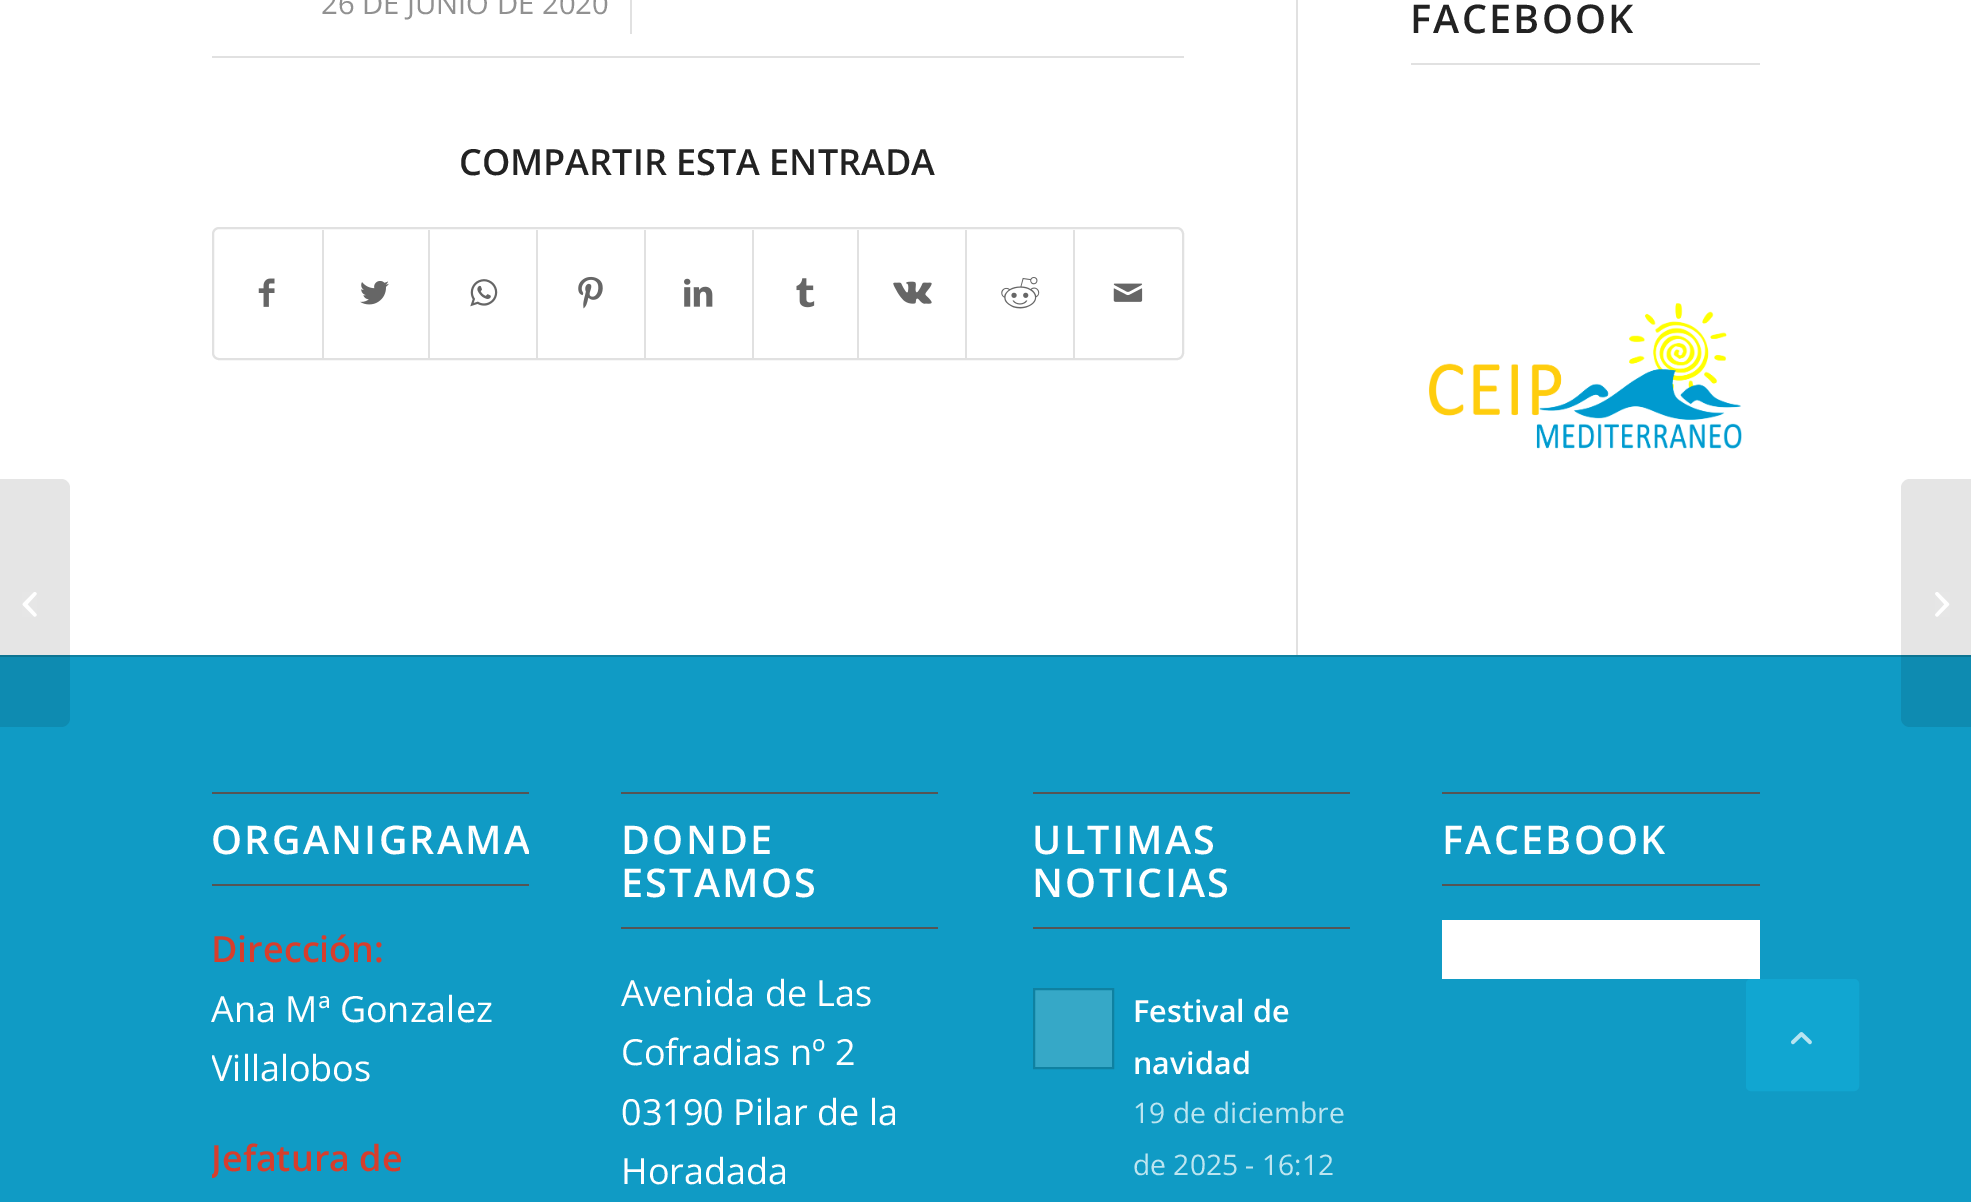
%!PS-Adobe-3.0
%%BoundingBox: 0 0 1971 1202
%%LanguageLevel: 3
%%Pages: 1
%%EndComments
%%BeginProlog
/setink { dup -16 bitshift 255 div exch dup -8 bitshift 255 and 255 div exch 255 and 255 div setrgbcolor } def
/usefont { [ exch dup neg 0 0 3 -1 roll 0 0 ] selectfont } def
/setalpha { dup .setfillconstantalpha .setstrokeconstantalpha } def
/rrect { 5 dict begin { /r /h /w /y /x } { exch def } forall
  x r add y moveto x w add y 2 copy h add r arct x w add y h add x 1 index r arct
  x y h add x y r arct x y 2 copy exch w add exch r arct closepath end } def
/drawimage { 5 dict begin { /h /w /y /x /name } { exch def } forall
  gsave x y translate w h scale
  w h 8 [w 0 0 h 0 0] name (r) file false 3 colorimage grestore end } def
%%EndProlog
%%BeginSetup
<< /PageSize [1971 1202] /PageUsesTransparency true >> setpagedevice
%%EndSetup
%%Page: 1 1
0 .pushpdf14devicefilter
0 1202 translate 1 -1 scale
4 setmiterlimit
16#FFFFFF setink
0 0 1971 1202 rectfill
16#109BC5 setink
0 657 1971 545 rectfill
16#0F81A1 setink
0 655 1971 2 rectfill
0.1 setalpha
16#000000 setink
0 479 moveto 61 479 lineto 66 479 70 483 70 488 curveto 70 718 lineto 70 723 66 727 61 727 curveto 0 727 lineto closepath fill
1 setalpha
(img1.raw) 22 592 15 25 drawimage
16#E1E1E1 setink
212 56 972 2 rectfill
/OpenSans-Regular 29.25 usefont
16#919191 setink
321 14 moveto (26 DE JUNIO DE 2020) show
16#E1E1E1 setink
630 0 2 34 rectfill
/OpenSans-SemiBold 36 usefont
16#222222 setink
459 175 moveto (COMPARTIR ESTA ENTRADA) show
16#E1E1E1 setink
2 setlinewidth
213 228 970 131 6 rrect stroke
(img2.raw) 258 278 17 29 drawimage
322 230 2 128 rectfill
(img3.raw) 360 281 29 24 drawimage
428 230 2 128 rectfill
(img4.raw) 470 279 28 28 drawimage
536 230 2 128 rectfill
(img5.raw) 578 276 25 33 drawimage
644 230 2 128 rectfill
(img6.raw) 684 278 29 29 drawimage
752 230 2 128 rectfill
(img7.raw) 796 278 19 30 drawimage
857 230 2 128 rectfill
(img8.raw) 893 281 39 23 drawimage
965 230 2 128 rectfill
(img9.raw) 1001 277 39 32 drawimage
1073 230 2 128 rectfill
(img10.raw) 1113 283 30 19 drawimage
1296 0 2 655 rectfill
1411 63 349 2 rectfill
/OpenSans-SemiBold 39.5 usefont
16#222222 setink
1410 33 moveto 2.25 0 (FACEBOOK) ashow
(img11.raw) 1428 303 314 146 drawimage
16#555555 setink
212 792 317 2 rectfill
212 884 317 2 rectfill
gsave
212 758 317 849 rectclip
16#FFFFFF setink
211 854 moveto 2.25 0 (ORGANIGRAMA) ashow
grestore
/OpenSans-SemiBold 36 usefont
16#D63E2D setink
211 962 moveto (Dirección:) show
/OpenSans-Regular 36 usefont
16#FFFFFF setink
211 1022 moveto (Ana Mª Gonzalez) show
gsave
212 758 317 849 rectclip
211 1081 moveto (Villalobos) show
/OpenSans-SemiBold 36 usefont
16#D63E2D setink
211 1171 moveto (Jefatura de) show
grestore
16#555555 setink
621 792 317 2 rectfill
621 927 317 2 rectfill
/OpenSans-SemiBold 39.5 usefont
16#FFFFFF setink
621 854 moveto 2.25 0 (DONDE) ashow
621 897 moveto 2.25 0 (ESTAMOS) ashow
/OpenSans-Regular 36 usefont
[
    [(Avenida de Las) 621 1006]
    [(Cofradias nº 2) 621 1065]
    [(03190 Pilar de la) 621 1125]
    [(Horadada) 621 1184]
] { aload pop moveto show } forall
16#555555 setink
1033 792 317 2 rectfill
1033 927 317 2 rectfill
/OpenSans-SemiBold 39.5 usefont
16#FFFFFF setink
1032 854 moveto 2.25 0 (ULTIMAS) ashow
1032 897 moveto 2.25 0 (NOTICIAS) ashow
16#36A8C7 setink
1034 989 moveto 1113 989 lineto 1113 1068 lineto 1034 1068 lineto closepath gsave fill grestore
16#0F81A1 setink
stroke
/OpenSans-SemiBold 30.5 usefont
16#FFFFFF setink
1133 1022 moveto (Festival de) show
1133 1074 moveto (navidad) show
/OpenSans-Regular 28.25 usefont
16#BDE5F0 setink
1133 1123 moveto (19 de diciembre) show
1133 1175 moveto (de 2025 - 16:12) show
16#555555 setink
1442 792 318 2 rectfill
1442 884 318 2 rectfill
/OpenSans-SemiBold 39.5 usefont
16#FFFFFF setink
1442 854 moveto 2.25 0 (FACEBOOK) ashow
1442 920 318 59 rectfill
0.1 setalpha
16#000000 setink
1910 479 moveto 1971 479 lineto 1971 727 lineto 1910 727 lineto 1905 727 1901 723 1901 718 curveto 1901 488 lineto 1901 483 1905 479 1910 479 curveto closepath fill
1 setalpha
(img12.raw) 1935 592 15 25 drawimage
16#11A6D1 setink
1747 980 111 110 4 rrect gsave fill grestore
stroke
(img13.raw) 1791 1032 21 13 drawimage
.poppdf14devicefilter showpage
%%EOF
